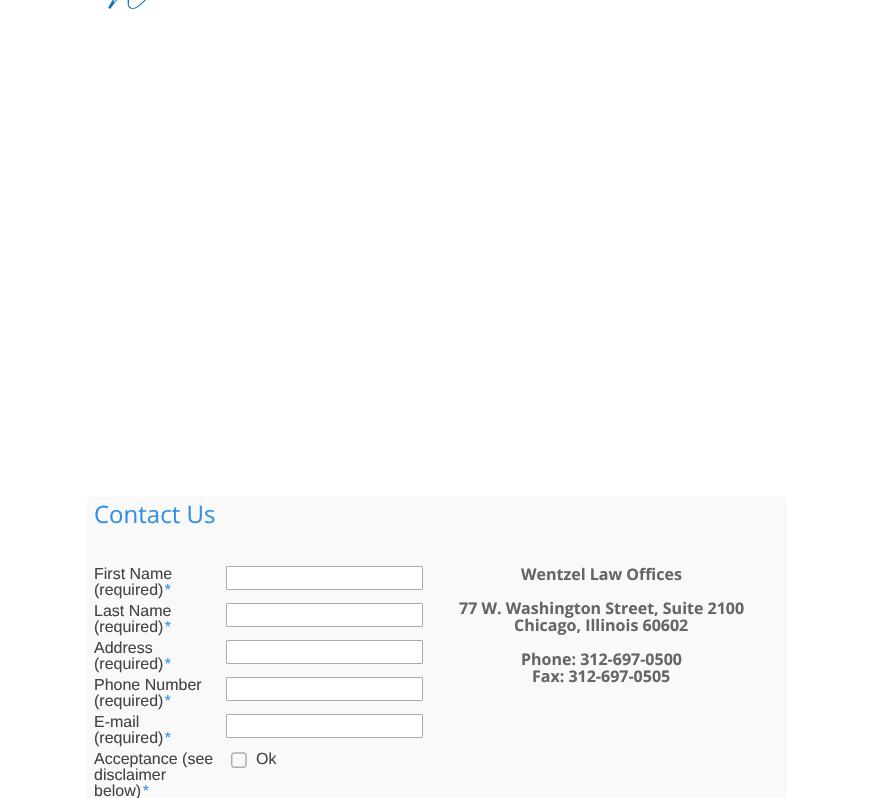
void draw(SkCanvas* canvas) {
    SkPaint paint;
    paint.setAntiAlias(true);
    canvas->clear(0xFFFFFFFF);
    canvas->drawImageRect(SkImages::DeferredFromEncodedData(SkData::MakeFromFileName("img1.png")), SkRect::MakeXYWH(108, 0, 38, 9), SkSamplingOptions());
    paint.setColor(0xFFF9F9F9);
    canvas->drawRect(SkRect::MakeXYWH(87, 497, 700, 301), paint);
    SkFont font1(fontMgr->matchFamilyStyle("Open Sans", SkFontStyle::Normal()), 24);
    font1.setSubpixel(true);
    paint.setColor(0xFF328FE6);
    canvas->drawString("Contact Us", 94, 523, font1, paint);
    SkFont font2(fontMgr->matchFamilyStyle("Liberation Sans", SkFontStyle::Normal()), 16);
    font2.setSubpixel(true);
    paint.setColor(0xFF444444);
    canvas->drawString("First Name", 94, 579, font2, paint);
    canvas->drawString("(required)", 94, 595, font2, paint);
    SkFont font3(fontMgr->matchFamilyStyle("Liberation Sans", SkFontStyle::Italic()), 16);
    font3.setSubpixel(true);
    paint.setColor(0xFF328FE6);
    canvas->drawString("*", 164, 595, font3, paint);
    paint.setColor(0xFFFFFFFF);
    canvas->drawRoundRect(SkRect::MakeXYWH(226.5f, 566.5f, 196, 23), 0.5f, 0.5f, paint);
    paint.setStyle(SkPaint::kStroke_Style);
    paint.setStrokeWidth(1);
    paint.setColor(0xFFABABAB);
    canvas->drawRoundRect(SkRect::MakeXYWH(226.5f, 566.5f, 196, 23), 0.5f, 0.5f, paint);
    paint.setStyle(SkPaint::kFill_Style);
    paint.setColor(0xFF444444);
    canvas->drawString("Last Name", 94, 616, font2, paint);
    canvas->drawString("(required)", 94, 632, font2, paint);
    paint.setColor(0xFF328FE6);
    canvas->drawString("*", 164, 632, font3, paint);
    paint.setColor(0xFFFFFFFF);
    canvas->drawRoundRect(SkRect::MakeXYWH(226.5f, 603.5f, 196, 23), 0.5f, 0.5f, paint);
    paint.setStyle(SkPaint::kStroke_Style);
    paint.setColor(0xFFABABAB);
    canvas->drawRoundRect(SkRect::MakeXYWH(226.5f, 603.5f, 196, 23), 0.5f, 0.5f, paint);
    paint.setStyle(SkPaint::kFill_Style);
    paint.setColor(0xFF444444);
    canvas->drawString("Address", 94, 653, font2, paint);
    canvas->drawString("(required)", 94, 669, font2, paint);
    paint.setColor(0xFF328FE6);
    canvas->drawString("*", 164, 669, font3, paint);
    paint.setColor(0xFFFFFFFF);
    canvas->drawRoundRect(SkRect::MakeXYWH(226.5f, 640.5f, 196, 23), 0.5f, 0.5f, paint);
    paint.setStyle(SkPaint::kStroke_Style);
    paint.setColor(0xFFABABAB);
    canvas->drawRoundRect(SkRect::MakeXYWH(226.5f, 640.5f, 196, 23), 0.5f, 0.5f, paint);
    paint.setStyle(SkPaint::kFill_Style);
    paint.setColor(0xFF444444);
    canvas->drawString("Phone Number", 94, 690, font2, paint);
    canvas->drawString("(required)", 94, 706, font2, paint);
    paint.setColor(0xFF328FE6);
    canvas->drawString("*", 164, 706, font3, paint);
    paint.setColor(0xFFFFFFFF);
    canvas->drawRoundRect(SkRect::MakeXYWH(226.5f, 677.5f, 196, 23), 0.5f, 0.5f, paint);
    paint.setStyle(SkPaint::kStroke_Style);
    paint.setColor(0xFFABABAB);
    canvas->drawRoundRect(SkRect::MakeXYWH(226.5f, 677.5f, 196, 23), 0.5f, 0.5f, paint);
    paint.setStyle(SkPaint::kFill_Style);
    paint.setColor(0xFF444444);
    canvas->drawString("E-mail", 94, 727, font2, paint);
    canvas->drawString("(required)", 94, 743, font2, paint);
    paint.setColor(0xFF328FE6);
    canvas->drawString("*", 164, 743, font3, paint);
    paint.setColor(0xFFFFFFFF);
    canvas->drawRoundRect(SkRect::MakeXYWH(226.5f, 714.5f, 196, 23), 0.5f, 0.5f, paint);
    paint.setStyle(SkPaint::kStroke_Style);
    paint.setColor(0xFFABABAB);
    canvas->drawRoundRect(SkRect::MakeXYWH(226.5f, 714.5f, 196, 23), 0.5f, 0.5f, paint);
    paint.setStyle(SkPaint::kFill_Style);
    paint.setColor(0xFF444444);
    canvas->drawString("Acceptance (see", 94, 764, font2, paint);
    canvas->drawString("disclaimer", 94, 780, font2, paint);
    canvas->drawString("below)", 94, 796, font2, paint);
    paint.setColor(0xFF328FE6);
    canvas->drawString("*", 142, 796, font3, paint);
    canvas->drawImageRect(SkImages::DeferredFromEncodedData(SkData::MakeFromFileName("img2.png")), SkRect::MakeXYWH(231, 752, 16, 16), SkSamplingOptions());
    paint.setColor(0xFF444444);
    canvas->drawString("Ok", 256, 764, font2, paint);
    SkFont font4(fontMgr->matchFamilyStyle("Open Sans", SkFontStyle::Bold()), 16);
    font4.setSubpixel(true);
    paint.setColor(0xFF666666);
    canvas->drawString("Wentzel Law Offices", 521, 580, font4, paint);
    canvas->drawString("77 W. Washington Street, Suite 2100", 459, 614, font4, paint);
    canvas->drawString("Chicago, Illinois 60602", 514, 631, font4, paint);
    canvas->drawString("Phone: 312-697-0500", 521, 665, font4, paint);
    canvas->drawString("Fax: 312-697-0505", 532, 682, font4, paint);
}
